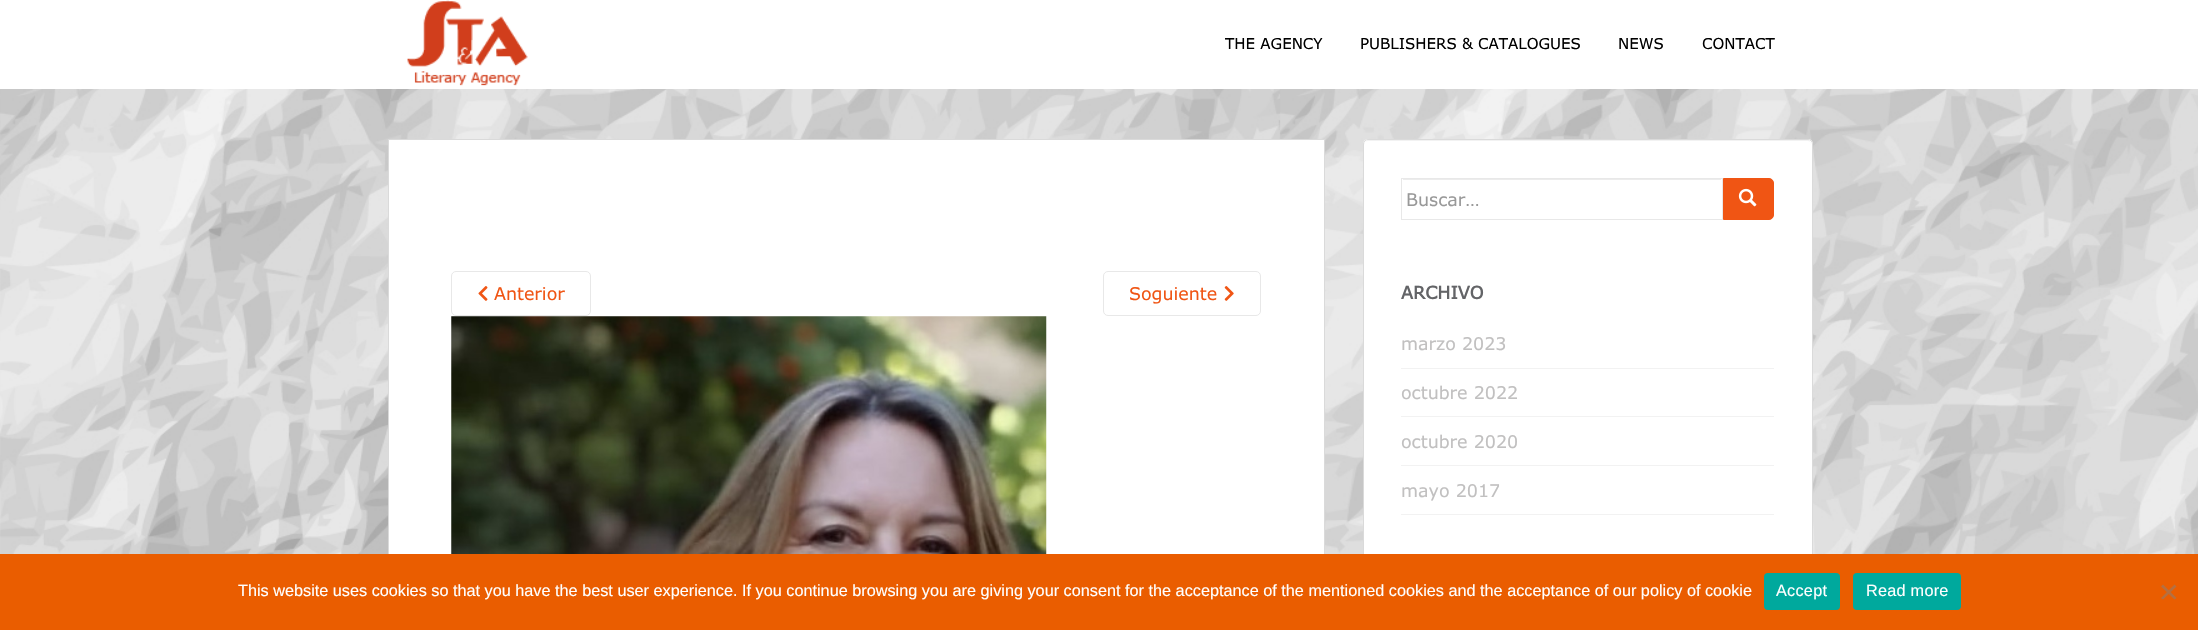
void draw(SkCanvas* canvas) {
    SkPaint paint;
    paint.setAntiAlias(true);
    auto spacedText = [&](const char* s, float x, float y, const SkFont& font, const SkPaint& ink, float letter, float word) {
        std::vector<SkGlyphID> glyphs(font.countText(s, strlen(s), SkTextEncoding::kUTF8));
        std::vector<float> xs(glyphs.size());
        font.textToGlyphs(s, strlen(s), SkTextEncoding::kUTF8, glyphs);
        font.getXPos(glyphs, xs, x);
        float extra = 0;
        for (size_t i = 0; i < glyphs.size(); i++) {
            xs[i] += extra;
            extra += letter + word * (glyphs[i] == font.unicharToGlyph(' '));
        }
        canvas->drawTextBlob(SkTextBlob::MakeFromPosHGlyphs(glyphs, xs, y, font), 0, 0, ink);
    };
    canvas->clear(0xFFFFFFFF);
    canvas->drawImageRect(SkImages::DeferredFromEncodedData(SkData::MakeFromFileName("img1.png")), SkRect::MakeXYWH(0, 89, 2198, 465), SkSamplingOptions());
    canvas->drawImageRect(SkImages::DeferredFromEncodedData(SkData::MakeFromFileName("img2.png")), SkRect::MakeXYWH(407, 0, 121, 86), SkSamplingOptions());
    SkFont font1(fontMgr->matchFamilyStyle("Verdana", SkFontStyle::Normal()), 15);
    font1.setSubpixel(true);
    paint.setColor(0xFF000000);
    canvas->drawString("THE AGENCY", 1225, 49, font1, paint);
    canvas->drawString("PUBLISHERS & CATALOGUES", 1360, 49, font1, paint);
    canvas->drawString("NEWS", 1618, 49, font1, paint);
    canvas->drawString("CONTACT", 1702, 49, font1, paint);
    paint.setColor(0xFFFFFFFF);
    canvas->drawRect(SkRect::MakeXYWH(389, 140, 935, 414), paint);
    paint.setStyle(SkPaint::kStroke_Style);
    paint.setStrokeWidth(1);
    paint.setColor(0xFFDADADA);
    canvas->drawRect(SkRect::MakeXYWH(388.5f, 139.5f, 936, 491), paint);
    paint.setColor(0xFFE8E8E8);
    canvas->drawRoundRect(SkRect::MakeXYWH(451.5f, 271.5f, 139, 44), 4.5f, 4.5f, paint);
    canvas->drawImageRect(SkImages::DeferredFromEncodedData(SkData::MakeFromFileName("img3.png")), SkRect::MakeXYWH(478, 286, 10, 15), SkSamplingOptions());
    SkFont font2(fontMgr->matchFamilyStyle("Verdana", SkFontStyle::Normal()), 17.5f);
    font2.setSubpixel(true);
    paint.setStyle(SkPaint::kFill_Style);
    paint.setColor(0xFFF05514);
    canvas->drawString("Anterior", 494, 300, font2, paint);
    paint.setStyle(SkPaint::kStroke_Style);
    paint.setColor(0xFFE8E8E8);
    canvas->drawRoundRect(SkRect::MakeXYWH(1103.5f, 271.5f, 157, 44), 4.5f, 4.5f, paint);
    paint.setStyle(SkPaint::kFill_Style);
    paint.setColor(0xFFF05514);
    canvas->drawString("Soguiente", 1129, 300, font2, paint);
    canvas->drawImageRect(SkImages::DeferredFromEncodedData(SkData::MakeFromFileName("img4.png")), SkRect::MakeXYWH(1224, 286, 10, 15), SkSamplingOptions());
    canvas->drawImageRect(SkImages::DeferredFromEncodedData(SkData::MakeFromFileName("img5.png")), SkRect::MakeXYWH(451, 316, 596, 238), SkSamplingOptions());
    paint.setColor(0xFFFFFFFF);
    canvas->drawRoundRect(SkRect::MakeXYWH(1363, 139, 450, 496), 5, 5, paint);
    paint.setColor(0xFFF2F2F2);
    canvas->drawPath(SkPathBuilder().moveTo(1368, 141).lineTo(1808, 141).cubicTo(1810, 141, 1811, 143, 1811, 145).cubicTo(1811, 142, 1810, 140, 1807, 140).lineTo(1368, 140).lineTo(1366, 141).lineTo(1365, 142).lineTo(1364, 145).cubicTo(1364, 143, 1365, 141, 1368, 141).close().detach(), paint);
    paint.setStyle(SkPaint::kStroke_Style);
    paint.setColor(0xFFDADADA);
    canvas->drawRoundRect(SkRect::MakeXYWH(1363.5f, 139.5f, 449, 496), 4.5f, 4.5f, paint);
    paint.setStyle(SkPaint::kFill_Style);
    paint.setColor(0xFFECECEC);
    canvas->drawRect(SkRect::MakeXYWH(1403, 179, 318, 1), paint);
    paint.setStyle(SkPaint::kStroke_Style);
    paint.setColor(0xFFE8E8E8);
    canvas->drawRect(SkRect::MakeXYWH(1401.5f, 178.5f, 321, 41), paint);
    paint.setStyle(SkPaint::kFill_Style);
    paint.setColor(0xFF999999);
    canvas->drawString("Buscar…", 1406, 206, font2, paint);
    paint.setColor(0xFFF05514);
    canvas->drawPath(SkPathBuilder().moveTo(1723.5f, 178.5f).lineTo(1769, 178.5f).cubicTo(1771.5f, 178.5f, 1773.5f, 180.5f, 1773.5f, 183).lineTo(1773.5f, 215).cubicTo(1773.5f, 217.5f, 1771.5f, 219.5f, 1769, 219.5f).lineTo(1723.5f, 219.5f).close().detach(), paint);
    paint.setStyle(SkPaint::kStroke_Style);
    canvas->drawPath(SkPathBuilder().moveTo(1723.5f, 178.5f).lineTo(1769, 178.5f).cubicTo(1771.5f, 178.5f, 1773.5f, 180.5f, 1773.5f, 183).lineTo(1773.5f, 215).cubicTo(1773.5f, 217.5f, 1771.5f, 219.5f, 1769, 219.5f).lineTo(1723.5f, 219.5f).close().detach(), paint);
    canvas->drawImageRect(SkImages::DeferredFromEncodedData(SkData::MakeFromFileName("img6.png")), SkRect::MakeXYWH(1738, 188, 19, 19), SkSamplingOptions());
    SkFont font3(fontMgr->matchFamilyStyle("Verdana", SkFontStyle::Bold()), 17.5f);
    font3.setSubpixel(true);
    paint.setStyle(SkPaint::kFill_Style);
    paint.setColor(0xFF636467);
    canvas->drawString("ARCHIVO", 1401, 299, font3, paint);
    paint.setColor(0xFFF2F2F2);
    canvas->drawRect(SkRect::MakeXYWH(1401, 368, 373, 1), paint);
    paint.setColor(0xFFC1C0C0);
    canvas->drawString("marzo 2023", 1401, 350, font2, paint);
    paint.setColor(0xFFF2F2F2);
    canvas->drawRect(SkRect::MakeXYWH(1401, 416, 373, 1), paint);
    paint.setColor(0xFFC1C0C0);
    canvas->drawString("octubre 2022", 1401, 399, font2, paint);
    paint.setColor(0xFFF2F2F2);
    canvas->drawRect(SkRect::MakeXYWH(1401, 465, 373, 1), paint);
    paint.setColor(0xFFC1C0C0);
    canvas->drawString("octubre 2020", 1401, 448, font2, paint);
    paint.setColor(0xFFF2F2F2);
    canvas->drawRect(SkRect::MakeXYWH(1401, 514, 373, 1), paint);
    paint.setColor(0xFFC1C0C0);
    canvas->drawString("mayo 2017", 1401, 497, font2, paint);
    paint.setColor(0xFFEA5D00);
    canvas->drawRect(SkRect::MakeXYWH(0, 554, 2198, 76), paint);
    SkFont font4(fontMgr->matchFamilyStyle("Liberation Sans", SkFontStyle::Normal()), 16.25f);
    font4.setSubpixel(true);
    paint.setColor(0xFFFFFFFF);
    canvas->drawString("This website uses cookies so that you have the best user experience. If you continue browsing you are giving your consent for the acceptance of the mentioned cookies and the acceptance of our policy of cookie", 238, 596, font4, paint);
    paint.setColor(0xFF00A99D);
    canvas->drawRoundRect(SkRect::MakeXYWH(1764, 573, 76, 37), 4, 4, paint);
    paint.setColor(0xFFFFFFFF);
    spacedText("Accept", 1776, 596, font4, paint, 0.25f, 0);
    paint.setColor(0xFF00A99D);
    canvas->drawRoundRect(SkRect::MakeXYWH(1853, 573, 108, 37), 4, 4, paint);
    paint.setColor(0xFFFFFFFF);
    spacedText("Read more", 1866, 596, font4, paint, 0.25f, 0);
    paint.setColor(0xFFB56F40);
    canvas->drawPath(SkPathBuilder().moveTo(2174.5f, 584.5f).lineTo(2176.5f, 586.5f).lineTo(2163, 599.5f).lineTo(2161, 598).close().detach(), paint);
    canvas->drawPath(SkPathBuilder().moveTo(2161, 586.5f).lineTo(2163, 584.5f).lineTo(2176.5f, 598).lineTo(2174.5f, 599.5f).close().detach(), paint);
}
